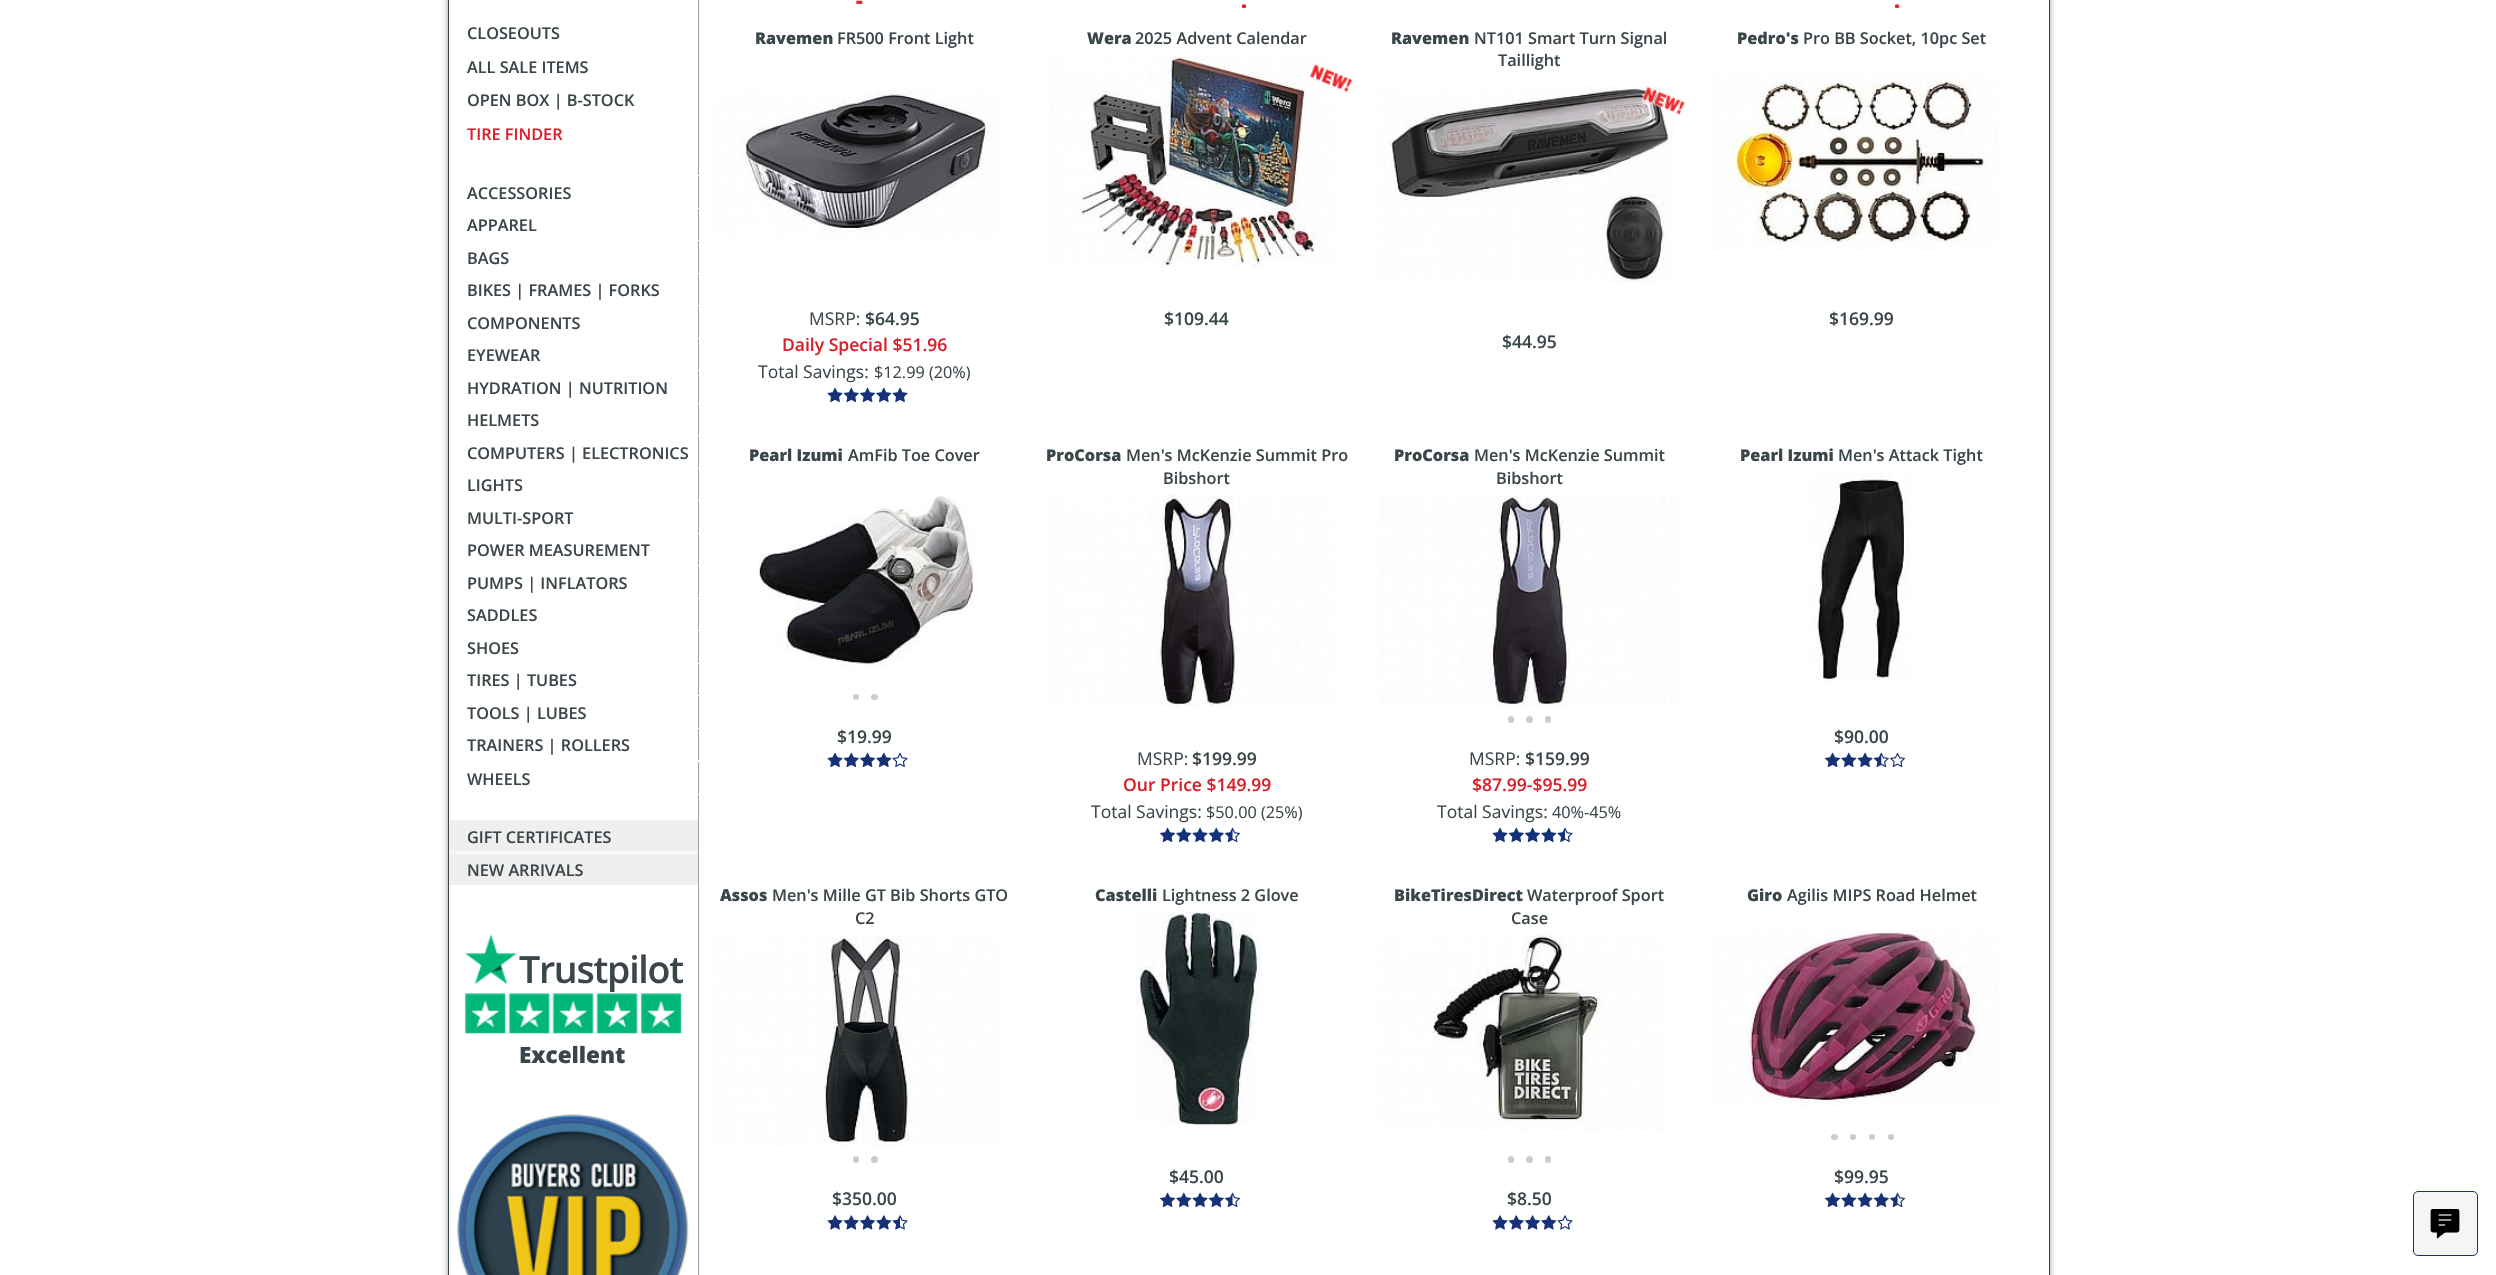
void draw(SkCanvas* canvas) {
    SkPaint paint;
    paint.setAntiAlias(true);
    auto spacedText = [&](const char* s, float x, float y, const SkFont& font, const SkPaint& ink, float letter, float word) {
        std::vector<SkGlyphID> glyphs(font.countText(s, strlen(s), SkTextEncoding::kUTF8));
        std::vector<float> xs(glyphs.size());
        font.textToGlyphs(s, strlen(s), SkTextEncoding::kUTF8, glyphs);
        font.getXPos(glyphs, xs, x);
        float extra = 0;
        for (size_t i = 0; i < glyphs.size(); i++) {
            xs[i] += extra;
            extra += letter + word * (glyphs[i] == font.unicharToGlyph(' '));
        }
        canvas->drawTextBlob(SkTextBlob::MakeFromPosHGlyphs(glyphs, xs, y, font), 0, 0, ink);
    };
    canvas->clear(0xFFFFFFFF);
    canvas->save();
    canvas->clipPath(SkPathBuilder(SkPathFillType::kEvenOdd).moveTo(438, 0).lineTo(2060, 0).lineTo(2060, 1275).lineTo(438, 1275).close().moveTo(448, -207).lineTo(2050, -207).lineTo(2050, 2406).lineTo(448, 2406).close().detach(), true);
    paint.setColor(0x66000000);
    paint.setMaskFilter(SkMaskFilter::MakeBlur(kNormal_SkBlurStyle, 3));
    canvas->drawRect(SkRect::MakeXYWH(448, -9, 1602, 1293), paint);
    paint.setMaskFilter(nullptr);
    canvas->restore();
    paint.setColor(0xFF3B464A);
    canvas->drawRect(SkRect::MakeXYWH(2049, 0, 1, 1275), paint);
    canvas->drawRect(SkRect::MakeXYWH(448, 0, 1, 1275), paint);
    paint.setColor(0xFFA0A0A0);
    canvas->drawRect(SkRect::MakeXYWH(698, 0, 1, 1275), paint);
    SkFont font1(fontMgr->matchFamilyStyle("Open Sans", SkFontStyle(600, SkFontStyle::kNormal_Width, SkFontStyle::kUpright_Slant)), 16.25f);
    font1.setSubpixel(true);
    paint.setColor(0xFF3B464A);
    canvas->drawString("CLOSEOUTS", 467, 39, font1, paint);
    canvas->drawString("ALL SALE ITEMS", 467, 73, font1, paint);
    canvas->drawString("OPEN BOX | B-STOCK", 467, 106, font1, paint);
    paint.setColor(0xFFD8202A);
    canvas->drawString("TIRE FINDER", 467, 140, font1, paint);
    paint.setColor(0xFFFFFFFF);
    canvas->drawRect(SkRect::MakeXYWH(698, 175, 1, 1), paint);
    canvas->drawRect(SkRect::MakeXYWH(698, 208, 1, 1), paint);
    paint.setColor(0xFF3B464A);
    canvas->drawString("ACCESSORIES", 467, 199, font1, paint);
    paint.setColor(0xFFFFFFFF);
    canvas->drawRect(SkRect::MakeXYWH(698, 240, 1, 1), paint);
    paint.setColor(0xFF3B464A);
    canvas->drawString("APPAREL", 467, 231, font1, paint);
    paint.setColor(0xFFFFFFFF);
    canvas->drawRect(SkRect::MakeXYWH(698, 273, 1, 1), paint);
    paint.setColor(0xFF3B464A);
    canvas->drawString("BAGS", 467, 264, font1, paint);
    paint.setColor(0xFFFFFFFF);
    canvas->drawRect(SkRect::MakeXYWH(698, 305, 1, 1), paint);
    paint.setColor(0xFF3B464A);
    canvas->drawString("BIKES | FRAMES | FORKS", 467, 296, font1, paint);
    paint.setColor(0xFFFFFFFF);
    canvas->drawRect(SkRect::MakeXYWH(698, 338, 1, 1), paint);
    paint.setColor(0xFF3B464A);
    canvas->drawString("COMPONENTS", 467, 329, font1, paint);
    paint.setColor(0xFFFFFFFF);
    canvas->drawRect(SkRect::MakeXYWH(698, 370, 1, 1), paint);
    paint.setColor(0xFF3B464A);
    canvas->drawString("EYEWEAR", 467, 361, font1, paint);
    paint.setColor(0xFFFFFFFF);
    canvas->drawRect(SkRect::MakeXYWH(698, 403, 1, 1), paint);
    paint.setColor(0xFF3B464A);
    canvas->drawString("HYDRATION | NUTRITION", 467, 394, font1, paint);
    paint.setColor(0xFFFFFFFF);
    canvas->drawRect(SkRect::MakeXYWH(698, 435, 1, 1), paint);
    paint.setColor(0xFF3B464A);
    canvas->drawString("HELMETS", 467, 426, font1, paint);
    paint.setColor(0xFFFFFFFF);
    canvas->drawRect(SkRect::MakeXYWH(698, 468, 1, 1), paint);
    paint.setColor(0xFF3B464A);
    canvas->drawString("COMPUTERS | ELECTRONICS", 467, 459, font1, paint);
    paint.setColor(0xFFFFFFFF);
    canvas->drawRect(SkRect::MakeXYWH(698, 500, 1, 1), paint);
    paint.setColor(0xFF3B464A);
    canvas->drawString("LIGHTS", 467, 491, font1, paint);
    paint.setColor(0xFFFFFFFF);
    canvas->drawRect(SkRect::MakeXYWH(698, 533, 1, 1), paint);
    paint.setColor(0xFF3B464A);
    canvas->drawString("MULTI-SPORT", 467, 524, font1, paint);
    paint.setColor(0xFFFFFFFF);
    canvas->drawRect(SkRect::MakeXYWH(698, 565, 1, 1), paint);
    paint.setColor(0xFF3B464A);
    canvas->drawString("POWER MEASUREMENT", 467, 556, font1, paint);
    paint.setColor(0xFFFFFFFF);
    canvas->drawRect(SkRect::MakeXYWH(698, 598, 1, 1), paint);
    paint.setColor(0xFF3B464A);
    canvas->drawString("PUMPS | INFLATORS", 467, 589, font1, paint);
    paint.setColor(0xFFFFFFFF);
    canvas->drawRect(SkRect::MakeXYWH(698, 630, 1, 1), paint);
    paint.setColor(0xFF3B464A);
    canvas->drawString("SADDLES", 467, 621, font1, paint);
    paint.setColor(0xFFFFFFFF);
    canvas->drawRect(SkRect::MakeXYWH(698, 663, 1, 1), paint);
    paint.setColor(0xFF3B464A);
    canvas->drawString("SHOES", 467, 654, font1, paint);
    paint.setColor(0xFFFFFFFF);
    canvas->drawRect(SkRect::MakeXYWH(698, 695, 1, 1), paint);
    paint.setColor(0xFF3B464A);
    canvas->drawString("TIRES | TUBES", 467, 686, font1, paint);
    paint.setColor(0xFFFFFFFF);
    canvas->drawRect(SkRect::MakeXYWH(698, 728, 1, 1), paint);
    paint.setColor(0xFF3B464A);
    canvas->drawString("TOOLS | LUBES", 467, 719, font1, paint);
    paint.setColor(0xFFFFFFFF);
    canvas->drawRect(SkRect::MakeXYWH(698, 760, 1, 2), paint);
    paint.setColor(0xFF3B464A);
    canvas->drawString("TRAINERS | ROLLERS", 467, 751, font1, paint);
    paint.setColor(0xFFFFFFFF);
    canvas->drawRect(SkRect::MakeXYWH(698, 794, 1, 1), paint);
    paint.setColor(0xFF3B464A);
    canvas->drawString("WHEELS", 467, 785, font1, paint);
    paint.setColor(0xFFEFEFEF);
    canvas->drawRect(SkRect::MakeXYWH(449, 820, 249, 33), paint);
    paint.setColor(0xFFFFFFFF);
    canvas->drawRect(SkRect::MakeXYWH(449, 851, 249, 1), paint);
    paint.setColor(0xFF3B464A);
    canvas->drawString("GIFT CERTIFICATES", 467, 843, font1, paint);
    paint.setColor(0xFFEFEFEF);
    canvas->drawRect(SkRect::MakeXYWH(449, 854, 249, 31), paint);
    paint.setColor(0xFF3B464A);
    canvas->drawString("NEW ARRIVALS", 467, 876, font1, paint);
    canvas->drawImageRect(SkImages::DeferredFromEncodedData(SkData::MakeFromFileName("img1.png")), SkRect::MakeXYWH(464, 934, 218, 100), SkSamplingOptions());
    SkFont font2(fontMgr->matchFamilyStyle("Open Sans", SkFontStyle(600, SkFontStyle::kNormal_Width, SkFontStyle::kUpright_Slant)), 37.5f);
    font2.setSubpixel(true);
    spacedText("Trustpilot", 519, 983, font2, paint, -1.25f, 0);
    SkFont font3(fontMgr->matchFamilyStyle("Open Sans", SkFontStyle(800, SkFontStyle::kNormal_Width, SkFontStyle::kUpright_Slant)), 22.5f);
    font3.setSubpixel(true);
    canvas->drawString("Excellent", 519, 1063, font3, paint);
    canvas->drawImageRect(SkImages::DeferredFromEncodedData(SkData::MakeFromFileName("img2.png")), SkRect::MakeXYWH(457, 1114, 232, 161), SkSamplingOptions());
    SkFont font4(fontMgr->matchFamilyStyle("Open Sans", SkFontStyle(800, SkFontStyle::kNormal_Width, SkFontStyle::kUpright_Slant)), 21);
    font4.setSubpixel(true);
    paint.setColor(0xFFE92427);
    canvas->drawString("-", 856, 8, font4, paint);
    canvas->drawString(".", 1241, 8, font4, paint);
    canvas->drawString(".", 1894, 8, font4, paint);
    SkFont font5(fontMgr->matchFamilyStyle("Open Sans", SkFontStyle(800, SkFontStyle::kNormal_Width, SkFontStyle::kUpright_Slant)), 16.25f);
    font5.setSubpixel(true);
    paint.setColor(0xFF3B464A);
    canvas->drawString("Ravemen", 755, 44, font5, paint);
    canvas->drawString("FR500 Front Light", 837, 44, font1, paint);
    canvas->drawImageRect(SkImages::DeferredFromEncodedData(SkData::MakeFromFileName("img3.png")), SkRect::MakeXYWH(713, 90, 287, 147), SkSamplingOptions());
    SkFont font6(fontMgr->matchFamilyStyle("Open Sans", SkFontStyle::Normal()), 17.5f);
    font6.setSubpixel(true);
    canvas->drawString("MSRP:", 809, 325, font6, paint);
    SkFont font7(fontMgr->matchFamilyStyle("Open Sans", SkFontStyle(600, SkFontStyle::kNormal_Width, SkFontStyle::kUpright_Slant)), 17.5f);
    font7.setSubpixel(true);
    canvas->drawString("$64.95", 865, 325, font7, paint);
    paint.setColor(0xFFD8202A);
    canvas->drawString("Daily Special $51.96", 782, 351, font7, paint);
    paint.setColor(0xFF3B464A);
    canvas->drawString("Total Savings:", 758, 378, font6, paint);
    SkFont font8(fontMgr->matchFamilyStyle("Open Sans", SkFontStyle::Normal()), 16.25f);
    font8.setSubpixel(true);
    canvas->drawString("$12.99 (20%)", 874, 378, font8, paint);
    canvas->drawImageRect(SkImages::DeferredFromEncodedData(SkData::MakeFromFileName("img4.png")), SkRect::MakeXYWH(827, 387, 16, 16), SkSamplingOptions());
    canvas->drawImageRect(SkImages::DeferredFromEncodedData(SkData::MakeFromFileName("img5.png")), SkRect::MakeXYWH(843, 387, 16, 16), SkSamplingOptions());
    canvas->drawImageRect(SkImages::DeferredFromEncodedData(SkData::MakeFromFileName("img6.png")), SkRect::MakeXYWH(860, 387, 15, 16), SkSamplingOptions());
    canvas->drawImageRect(SkImages::DeferredFromEncodedData(SkData::MakeFromFileName("img7.png")), SkRect::MakeXYWH(876, 387, 16, 16), SkSamplingOptions());
    canvas->drawImageRect(SkImages::DeferredFromEncodedData(SkData::MakeFromFileName("img4.png")), SkRect::MakeXYWH(892, 387, 16, 16), SkSamplingOptions());
    canvas->drawString("Wera", 1087, 44, font5, paint);
    canvas->drawString("2025 Advent Calendar", 1135, 44, font1, paint);
    canvas->drawImageRect(SkImages::DeferredFromEncodedData(SkData::MakeFromFileName("img8.png")), SkRect::MakeXYWH(1045, 54, 288, 213), SkSamplingOptions());
    canvas->drawImageRect(SkImages::DeferredFromEncodedData(SkData::MakeFromFileName("img9.png")), SkRect::MakeXYWH(1309, 64, 44, 29), SkSamplingOptions());
    canvas->drawString("$109.44", 1164, 325, font7, paint);
    canvas->drawString("Ravemen", 1391, 44, font5, paint);
    canvas->drawString("NT101 Smart Turn Signal", 1474, 44, font1, paint);
    canvas->drawString("Taillight", 1498, 66, font1, paint);
    canvas->drawImageRect(SkImages::DeferredFromEncodedData(SkData::MakeFromFileName("img10.png")), SkRect::MakeXYWH(1378, 86, 296, 197), SkSamplingOptions());
    canvas->drawImageRect(SkImages::DeferredFromEncodedData(SkData::MakeFromFileName("img11.png")), SkRect::MakeXYWH(1641, 86, 45, 29), SkSamplingOptions());
    canvas->drawString("$44.95", 1502, 348, font7, paint);
    canvas->drawString("Pedro's", 1737, 44, font5, paint);
    canvas->drawString("Pro BB Socket, 10pc Set", 1803, 44, font1, paint);
    canvas->drawImageRect(SkImages::DeferredFromEncodedData(SkData::MakeFromFileName("img12.png")), SkRect::MakeXYWH(1710, 73, 288, 177), SkSamplingOptions());
    canvas->drawString("$169.99", 1829, 325, font7, paint);
    canvas->drawString("Pearl Izumi", 749, 461, font5, paint);
    canvas->drawString("AmFib Toe Cover", 848, 461, font1, paint);
    canvas->drawImageRect(SkImages::DeferredFromEncodedData(SkData::MakeFromFileName("img13.png")), SkRect::MakeXYWH(759, 495, 215, 174), SkSamplingOptions());
    paint.setColor(0xFFCCCCCC);
    canvas->drawCircle(856, 697, 3, paint);
    canvas->drawRoundRect(SkRect::MakeXYWH(871, 694, 7, 6), 3, 3, paint);
    paint.setColor(0xFF3B464A);
    canvas->drawString("$19.99", 837, 743, font7, paint);
    canvas->drawImageRect(SkImages::DeferredFromEncodedData(SkData::MakeFromFileName("img4.png")), SkRect::MakeXYWH(827, 752, 16, 16), SkSamplingOptions());
    canvas->drawImageRect(SkImages::DeferredFromEncodedData(SkData::MakeFromFileName("img5.png")), SkRect::MakeXYWH(843, 752, 16, 16), SkSamplingOptions());
    canvas->drawImageRect(SkImages::DeferredFromEncodedData(SkData::MakeFromFileName("img6.png")), SkRect::MakeXYWH(860, 752, 15, 16), SkSamplingOptions());
    canvas->drawImageRect(SkImages::DeferredFromEncodedData(SkData::MakeFromFileName("img7.png")), SkRect::MakeXYWH(876, 752, 16, 16), SkSamplingOptions());
    canvas->drawImageRect(SkImages::DeferredFromEncodedData(SkData::MakeFromFileName("img14.png")), SkRect::MakeXYWH(892, 752, 16, 16), SkSamplingOptions());
    canvas->drawString("ProCorsa", 1046, 461, font5, paint);
    canvas->drawString("Men's McKenzie Summit Pro", 1126, 461, font1, paint);
    canvas->drawString("Bibshort", 1163, 484, font1, paint);
    canvas->drawImageRect(SkImages::DeferredFromEncodedData(SkData::MakeFromFileName("img15.png")), SkRect::MakeXYWH(1045, 494, 288, 213), SkSamplingOptions());
    canvas->drawString("MSRP:", 1137, 765, font6, paint);
    canvas->drawString("$199.99", 1192, 765, font7, paint);
    paint.setColor(0xFFD8202A);
    canvas->drawString("Our Price $149.99", 1123, 791, font7, paint);
    paint.setColor(0xFF3B464A);
    canvas->drawString("Total Savings:", 1091, 818, font6, paint);
    canvas->drawString("$50.00 (25%)", 1206, 818, font8, paint);
    canvas->drawImageRect(SkImages::DeferredFromEncodedData(SkData::MakeFromFileName("img6.png")), SkRect::MakeXYWH(1160, 827, 15, 16), SkSamplingOptions());
    canvas->drawImageRect(SkImages::DeferredFromEncodedData(SkData::MakeFromFileName("img7.png")), SkRect::MakeXYWH(1176, 827, 16, 16), SkSamplingOptions());
    canvas->drawImageRect(SkImages::DeferredFromEncodedData(SkData::MakeFromFileName("img4.png")), SkRect::MakeXYWH(1192, 827, 16, 16), SkSamplingOptions());
    canvas->drawImageRect(SkImages::DeferredFromEncodedData(SkData::MakeFromFileName("img5.png")), SkRect::MakeXYWH(1208, 827, 16, 16), SkSamplingOptions());
    canvas->drawImageRect(SkImages::DeferredFromEncodedData(SkData::MakeFromFileName("img16.png")), SkRect::MakeXYWH(1225, 827, 16, 16), SkSamplingOptions());
    canvas->drawString("ProCorsa", 1394, 461, font5, paint);
    canvas->drawString("Men's McKenzie Summit", 1474, 461, font1, paint);
    canvas->drawString("Bibshort", 1496, 484, font1, paint);
    canvas->drawImageRect(SkImages::DeferredFromEncodedData(SkData::MakeFromFileName("img17.png")), SkRect::MakeXYWH(1379, 495, 304, 212), SkSamplingOptions());
    paint.setColor(0xFFCCCCCC);
    canvas->drawRoundRect(SkRect::MakeXYWH(1508, 716, 6, 7), 3, 3, paint);
    canvas->drawCircle(1529.5f, 719.5f, 3.5f, paint);
    canvas->drawRoundRect(SkRect::MakeXYWH(1545, 716, 6, 7), 3, 3, paint);
    paint.setColor(0xFF3B464A);
    canvas->drawString("MSRP:", 1469, 765, font6, paint);
    canvas->drawString("$159.99", 1525, 765, font7, paint);
    paint.setColor(0xFFD8202A);
    canvas->drawString("$87.99-$95.99", 1472, 791, font7, paint);
    paint.setColor(0xFF3B464A);
    canvas->drawString("Total Savings:", 1437, 818, font6, paint);
    canvas->drawString("40%-45%", 1552, 818, font8, paint);
    canvas->drawImageRect(SkImages::DeferredFromEncodedData(SkData::MakeFromFileName("img4.png")), SkRect::MakeXYWH(1492, 827, 16, 16), SkSamplingOptions());
    canvas->drawImageRect(SkImages::DeferredFromEncodedData(SkData::MakeFromFileName("img5.png")), SkRect::MakeXYWH(1508, 827, 16, 16), SkSamplingOptions());
    canvas->drawImageRect(SkImages::DeferredFromEncodedData(SkData::MakeFromFileName("img6.png")), SkRect::MakeXYWH(1525, 827, 15, 16), SkSamplingOptions());
    canvas->drawImageRect(SkImages::DeferredFromEncodedData(SkData::MakeFromFileName("img7.png")), SkRect::MakeXYWH(1541, 827, 16, 16), SkSamplingOptions());
    canvas->drawImageRect(SkImages::DeferredFromEncodedData(SkData::MakeFromFileName("img18.png")), SkRect::MakeXYWH(1557, 827, 16, 16), SkSamplingOptions());
    canvas->drawString("Pearl Izumi", 1740, 461, font5, paint);
    canvas->drawString("Men's Attack Tight", 1838, 461, font1, paint);
    canvas->drawImageRect(SkImages::DeferredFromEncodedData(SkData::MakeFromFileName("img19.png")), SkRect::MakeXYWH(1811, 473, 98, 210), SkSamplingOptions());
    canvas->drawString("$90.00", 1834, 743, font7, paint);
    canvas->drawImageRect(SkImages::DeferredFromEncodedData(SkData::MakeFromFileName("img6.png")), SkRect::MakeXYWH(1825, 752, 15, 16), SkSamplingOptions());
    canvas->drawImageRect(SkImages::DeferredFromEncodedData(SkData::MakeFromFileName("img7.png")), SkRect::MakeXYWH(1841, 752, 16, 16), SkSamplingOptions());
    canvas->drawImageRect(SkImages::DeferredFromEncodedData(SkData::MakeFromFileName("img4.png")), SkRect::MakeXYWH(1857, 752, 16, 16), SkSamplingOptions());
    canvas->drawImageRect(SkImages::DeferredFromEncodedData(SkData::MakeFromFileName("img20.png")), SkRect::MakeXYWH(1873, 752, 16, 16), SkSamplingOptions());
    canvas->drawImageRect(SkImages::DeferredFromEncodedData(SkData::MakeFromFileName("img21.png")), SkRect::MakeXYWH(1890, 752, 15, 16), SkSamplingOptions());
    canvas->drawString("Assos", 720, 901, font5, paint);
    canvas->drawString("Men's Mille GT Bib Shorts GTO", 772, 901, font1, paint);
    canvas->drawString("C2", 855, 924, font1, paint);
    canvas->drawImageRect(SkImages::DeferredFromEncodedData(SkData::MakeFromFileName("img22.png")), SkRect::MakeXYWH(713, 935, 287, 212), SkSamplingOptions());
    paint.setColor(0xFFCCCCCC);
    canvas->drawRoundRect(SkRect::MakeXYWH(853, 1156, 6, 7), 3, 3, paint);
    canvas->drawCircle(874.5f, 1159.5f, 3.5f, paint);
    paint.setColor(0xFF3B464A);
    canvas->drawString("$350.00", 832, 1205, font7, paint);
    canvas->drawImageRect(SkImages::DeferredFromEncodedData(SkData::MakeFromFileName("img23.png")), SkRect::MakeXYWH(827, 1215, 16, 15), SkSamplingOptions());
    canvas->drawImageRect(SkImages::DeferredFromEncodedData(SkData::MakeFromFileName("img24.png")), SkRect::MakeXYWH(843, 1215, 16, 15), SkSamplingOptions());
    canvas->drawImageRect(SkImages::DeferredFromEncodedData(SkData::MakeFromFileName("img25.png")), SkRect::MakeXYWH(860, 1215, 15, 15), SkSamplingOptions());
    canvas->drawImageRect(SkImages::DeferredFromEncodedData(SkData::MakeFromFileName("img26.png")), SkRect::MakeXYWH(876, 1215, 16, 15), SkSamplingOptions());
    canvas->drawImageRect(SkImages::DeferredFromEncodedData(SkData::MakeFromFileName("img27.png")), SkRect::MakeXYWH(892, 1215, 16, 15), SkSamplingOptions());
    canvas->drawString("Castelli", 1095, 901, font5, paint);
    canvas->drawString("Lightness 2 Glove", 1162, 901, font1, paint);
    canvas->drawImageRect(SkImages::DeferredFromEncodedData(SkData::MakeFromFileName("img28.png")), SkRect::MakeXYWH(1136, 912, 125, 213), SkSamplingOptions());
    canvas->drawString("$45.00", 1169, 1183, font7, paint);
    canvas->drawImageRect(SkImages::DeferredFromEncodedData(SkData::MakeFromFileName("img6.png")), SkRect::MakeXYWH(1160, 1192, 15, 16), SkSamplingOptions());
    canvas->drawImageRect(SkImages::DeferredFromEncodedData(SkData::MakeFromFileName("img7.png")), SkRect::MakeXYWH(1176, 1192, 16, 16), SkSamplingOptions());
    canvas->drawImageRect(SkImages::DeferredFromEncodedData(SkData::MakeFromFileName("img4.png")), SkRect::MakeXYWH(1192, 1192, 16, 16), SkSamplingOptions());
    canvas->drawImageRect(SkImages::DeferredFromEncodedData(SkData::MakeFromFileName("img5.png")), SkRect::MakeXYWH(1208, 1192, 16, 16), SkSamplingOptions());
    canvas->drawImageRect(SkImages::DeferredFromEncodedData(SkData::MakeFromFileName("img16.png")), SkRect::MakeXYWH(1225, 1192, 16, 16), SkSamplingOptions());
    canvas->drawString("BikeTiresDirect", 1394, 901, font5, paint);
    canvas->drawString("Waterproof Sport", 1527, 901, font1, paint);
    canvas->drawString("Case", 1511, 924, font1, paint);
    canvas->drawImageRect(SkImages::DeferredFromEncodedData(SkData::MakeFromFileName("img29.png")), SkRect::MakeXYWH(1378, 934, 287, 197), SkSamplingOptions());
    paint.setColor(0xFFCCCCCC);
    canvas->drawRoundRect(SkRect::MakeXYWH(1508, 1156, 6, 7), 3, 3, paint);
    canvas->drawCircle(1529.5f, 1159.5f, 3.5f, paint);
    canvas->drawRoundRect(SkRect::MakeXYWH(1545, 1156, 6, 7), 3, 3, paint);
    paint.setColor(0xFF3B464A);
    canvas->drawString("$8.50", 1507, 1205, font7, paint);
    canvas->drawImageRect(SkImages::DeferredFromEncodedData(SkData::MakeFromFileName("img23.png")), SkRect::MakeXYWH(1492, 1215, 16, 15), SkSamplingOptions());
    canvas->drawImageRect(SkImages::DeferredFromEncodedData(SkData::MakeFromFileName("img24.png")), SkRect::MakeXYWH(1508, 1215, 16, 15), SkSamplingOptions());
    canvas->drawImageRect(SkImages::DeferredFromEncodedData(SkData::MakeFromFileName("img25.png")), SkRect::MakeXYWH(1525, 1215, 15, 15), SkSamplingOptions());
    canvas->drawImageRect(SkImages::DeferredFromEncodedData(SkData::MakeFromFileName("img26.png")), SkRect::MakeXYWH(1541, 1215, 16, 15), SkSamplingOptions());
    canvas->drawImageRect(SkImages::DeferredFromEncodedData(SkData::MakeFromFileName("img30.png")), SkRect::MakeXYWH(1557, 1215, 16, 15), SkSamplingOptions());
    canvas->drawString("Giro", 1747, 901, font5, paint);
    canvas->drawString("Agilis MIPS Road Helmet", 1787, 901, font1, paint);
    canvas->drawImageRect(SkImages::DeferredFromEncodedData(SkData::MakeFromFileName("img31.png")), SkRect::MakeXYWH(1710, 930, 288, 177), SkSamplingOptions());
    paint.setColor(0xFFCCCCCC);
    canvas->drawRoundRect(SkRect::MakeXYWH(1831, 1134, 7, 6), 3, 3, paint);
    canvas->drawCircle(1853, 1137, 3, paint);
    canvas->drawCircle(1872, 1137, 3, paint);
    canvas->drawCircle(1891, 1137, 3, paint);
    paint.setColor(0xFF3B464A);
    canvas->drawString("$99.95", 1834, 1183, font7, paint);
    canvas->drawImageRect(SkImages::DeferredFromEncodedData(SkData::MakeFromFileName("img6.png")), SkRect::MakeXYWH(1825, 1192, 15, 16), SkSamplingOptions());
    canvas->drawImageRect(SkImages::DeferredFromEncodedData(SkData::MakeFromFileName("img7.png")), SkRect::MakeXYWH(1841, 1192, 16, 16), SkSamplingOptions());
    canvas->drawImageRect(SkImages::DeferredFromEncodedData(SkData::MakeFromFileName("img4.png")), SkRect::MakeXYWH(1857, 1192, 16, 16), SkSamplingOptions());
    canvas->drawImageRect(SkImages::DeferredFromEncodedData(SkData::MakeFromFileName("img5.png")), SkRect::MakeXYWH(1873, 1192, 16, 16), SkSamplingOptions());
    canvas->drawImageRect(SkImages::DeferredFromEncodedData(SkData::MakeFromFileName("img16.png")), SkRect::MakeXYWH(1890, 1192, 16, 16), SkSamplingOptions());
    paint.setColor(0xFFF5F5F5);
    canvas->drawRoundRect(SkRect::MakeXYWH(2413.5f, 1191.5f, 64, 64), 4.5f, 4.5f, paint);
    paint.setStyle(SkPaint::kStroke_Style);
    paint.setStrokeWidth(1);
    paint.setColor(0xFF163178);
    canvas->drawRoundRect(SkRect::MakeXYWH(2413.5f, 1191.5f, 64, 64), 4.5f, 4.5f, paint);
    canvas->drawImageRect(SkImages::DeferredFromEncodedData(SkData::MakeFromFileName("img32.png")), SkRect::MakeXYWH(2430, 1209, 30, 30), SkSamplingOptions());
}
